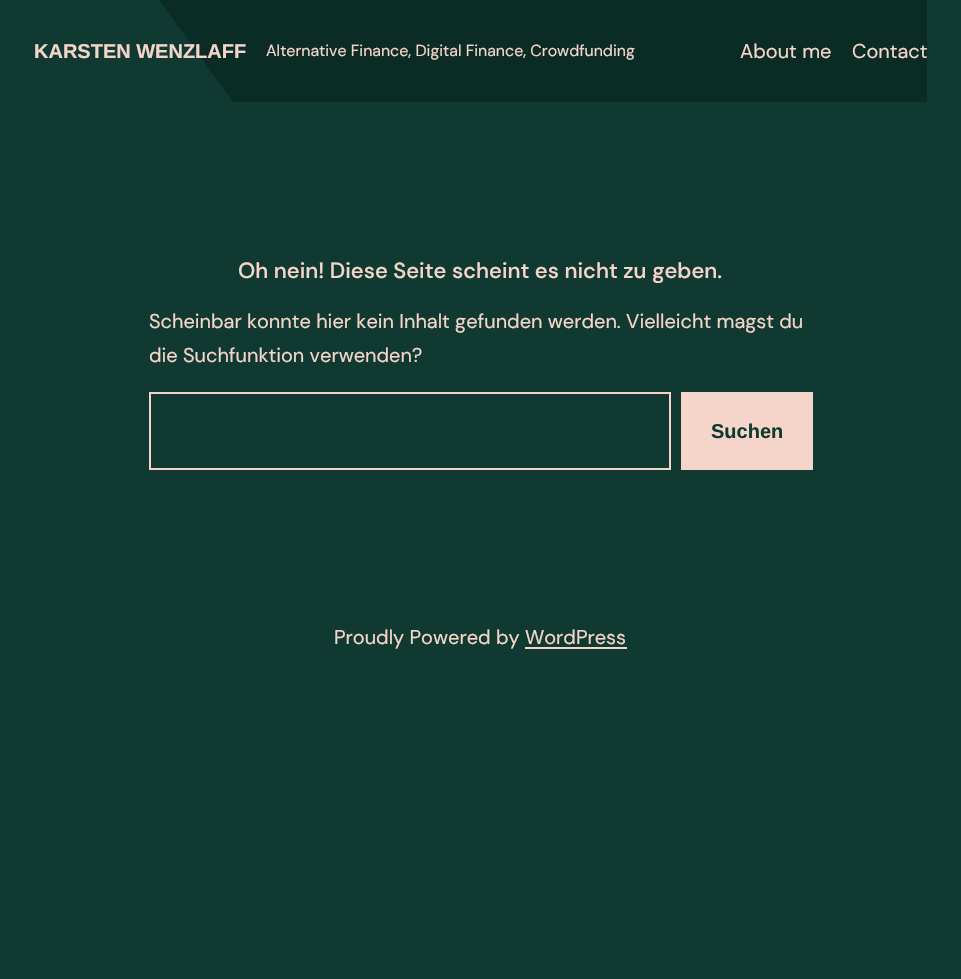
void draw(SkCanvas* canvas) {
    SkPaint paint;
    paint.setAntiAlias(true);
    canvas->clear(0xFF103931);
    paint.setColor(0xFF0A2C25);
    canvas->drawPath(SkPathBuilder().moveTo(159, 0).lineTo(233, 102).lineTo(927, 102).lineTo(927, 0).close().detach(), paint);
    SkFont font1(fontMgr->matchFamilyStyle("Liberation Sans", SkFontStyle::Bold()), 20);
    font1.setSubpixel(true);
    paint.setColor(0xFFF5D5CA);
    canvas->drawString("KARSTEN WENZLAFF", 34, 58, font1, paint);
    SkFont font2(fontMgr->matchFamilyStyle("DM Sans", SkFontStyle::Normal()), 16);
    font2.setSubpixel(true);
    canvas->drawString("Alternative Finance, Digital Finance, Crowdfunding", 266, 56, font2, paint);
    SkFont font3(fontMgr->matchFamilyStyle("DM Sans", SkFontStyle::Normal()), 20);
    font3.setSubpixel(true);
    canvas->drawString("About me", 740, 58, font3, paint);
    canvas->drawString("Contact", 852, 58, font3, paint);
    SkFont font4(fontMgr->matchFamilyStyle("DM Sans", SkFontStyle(500, SkFontStyle::kNormal_Width, SkFontStyle::kUpright_Slant)), 22);
    font4.setSubpixel(true);
    canvas->drawString("Oh nein! Diese Seite scheint es nicht zu geben.", 238, 278, font4, paint);
    canvas->drawString("Scheinbar konnte hier kein Inhalt gefunden werden. Vielleicht magst du", 149, 328, font3, paint);
    canvas->drawString("die Suchfunktion verwenden?", 149, 362, font3, paint);
    paint.setStyle(SkPaint::kStroke_Style);
    paint.setStrokeWidth(2);
    canvas->drawRect(SkRect::MakeXYWH(150, 393, 520, 76), paint);
    paint.setStyle(SkPaint::kFill_Style);
    canvas->drawRect(SkRect::MakeXYWH(681, 392, 132, 78), paint);
    paint.setColor(0xFF103931);
    canvas->drawString("Suchen", 711, 438, font1, paint);
    paint.setColor(0xFFF5D5CA);
    canvas->drawString("Proudly Powered by WordPress", 334, 644, font3, paint);
    canvas->drawRect(SkRect::MakeXYWH(525, 647, 102, 2), paint);
}
